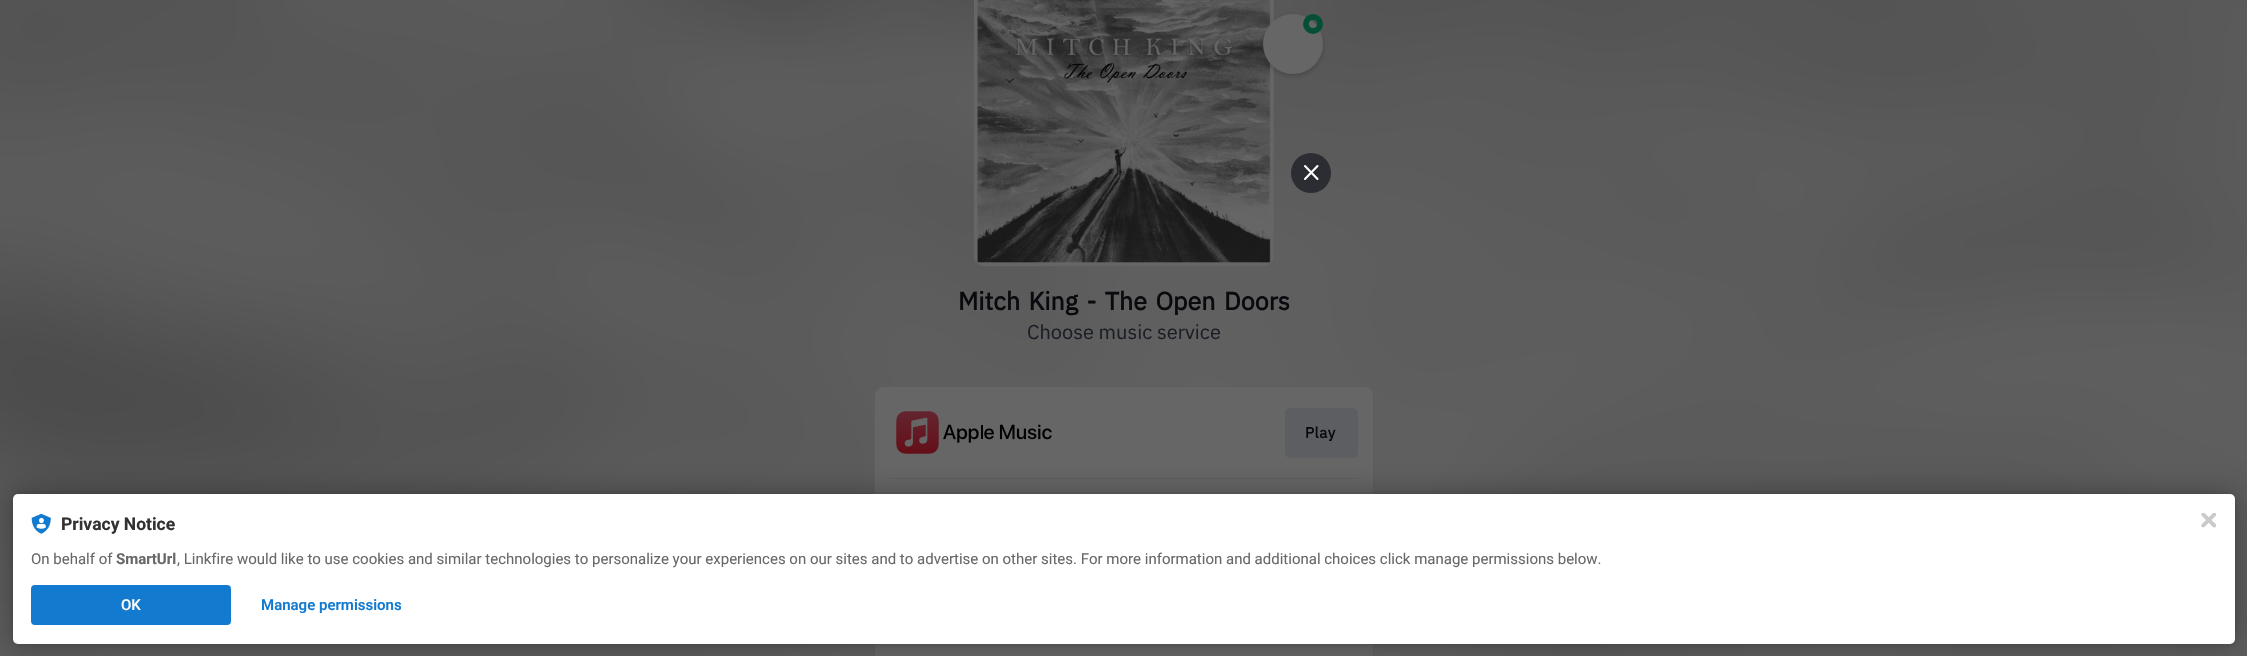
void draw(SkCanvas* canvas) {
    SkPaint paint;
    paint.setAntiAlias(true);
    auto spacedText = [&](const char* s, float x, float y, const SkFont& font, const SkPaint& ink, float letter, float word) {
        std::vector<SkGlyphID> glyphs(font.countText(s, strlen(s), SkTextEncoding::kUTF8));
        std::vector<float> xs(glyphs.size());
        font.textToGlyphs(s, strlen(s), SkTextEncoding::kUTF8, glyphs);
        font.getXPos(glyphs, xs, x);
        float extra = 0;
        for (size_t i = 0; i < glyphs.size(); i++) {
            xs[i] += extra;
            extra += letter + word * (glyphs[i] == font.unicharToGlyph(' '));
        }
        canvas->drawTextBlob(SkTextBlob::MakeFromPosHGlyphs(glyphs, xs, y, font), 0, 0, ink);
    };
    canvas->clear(0xFF666666);
    canvas->drawImageRect(SkImages::DeferredFromEncodedData(SkData::MakeFromFileName("img1.png")), SkRect::MakeXYWH(0, 0, 2247, 656), SkSamplingOptions());
    canvas->drawImageRect(SkImages::DeferredFromEncodedData(SkData::MakeFromFileName("img2.png")), SkRect::MakeXYWH(974, 0, 300, 266), SkSamplingOptions());
    paint.setColor(0x33000000);
    paint.setMaskFilter(SkMaskFilter::MakeBlur(kNormal_SkBlurStyle, 2.5f));
    canvas->drawRoundRect(SkRect::MakeXYWH(1263, 16, 60, 60), 30, 30, paint);
    paint.setMaskFilter(nullptr);
    paint.setColor(0xFF666666);
    canvas->drawCircle(1293, 44, 30, paint);
    paint.setStyle(SkPaint::kStroke_Style);
    paint.setStrokeWidth(6);
    paint.setColor(0xFF054F36);
    canvas->drawCircle(1313, 24, 7, paint);
    paint.setStyle(SkPaint::kFill_Style);
    paint.setColor(0xFF2C2C33);
    canvas->drawCircle(1311, 173, 20, paint);
    paint.setStyle(SkPaint::kStroke_Style);
    paint.setStrokeWidth(2.1f);
    paint.setStrokeCap(SkPaint::kRound_Cap);
    paint.setStrokeJoin(SkPaint::kRound_Join);
    paint.setColor(0xFFFFFFFF);
    canvas->drawPath(SkPathBuilder().moveTo(1305, 166).lineTo(1317.5f, 179).moveTo(1305, 179).lineTo(1317.5f, 166).detach(), paint);
    SkFont font1(fontMgr->matchFamilyStyle("IBM Plex Sans", SkFontStyle::Bold()), 25);
    font1.setSubpixel(true);
    paint.setStyle(SkPaint::kFill_Style);
    paint.setColor(0xFF0A090D);
    spacedText("Mitch King - The Open Doors", 958, 310, font1, paint, 0, 2.5f);
    SkFont font2(fontMgr->matchFamilyStyle("IBM Plex Sans", SkFontStyle::Normal()), 20);
    font2.setSubpixel(true);
    paint.setColor(0xFF1C1E26);
    canvas->drawString("Choose music service", 1027, 339, font2, paint);
    paint.setColor(0xFF666666);
    canvas->drawRoundRect(SkRect::MakeXYWH(874.5f, 386.5f, 499, 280), 9.5f, 9.5f, paint);
    paint.setStyle(SkPaint::kStroke_Style);
    paint.setStrokeWidth(1);
    paint.setStrokeCap(SkPaint::kButt_Cap);
    paint.setStrokeJoin(SkPaint::kMiter_Join);
    paint.setColor(0xFF5C5E61);
    canvas->drawRoundRect(SkRect::MakeXYWH(874.5f, 386.5f, 499, 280), 9.5f, 9.5f, paint);
    canvas->drawImageRect(SkImages::DeferredFromEncodedData(SkData::MakeFromFileName("img3.png")), SkRect::MakeXYWH(896, 411, 156, 43), SkSamplingOptions());
    paint.setStyle(SkPaint::kFill_Style);
    canvas->drawRoundRect(SkRect::MakeXYWH(1285, 408, 73, 50), 5, 5, paint);
    SkFont font3(fontMgr->matchFamilyStyle("IBM Plex Sans", SkFontStyle::Bold()), 15);
    font3.setSubpixel(true);
    paint.setColor(0xFF0A090D);
    spacedText("Play", 1305, 438, font3, paint, 0.5f, 0);
    paint.setColor(0xFF5C5E61);
    canvas->drawRect(SkRect::MakeXYWH(890, 478, 468, 1), paint);
    paint.setColor(0x1F000000);
    paint.setMaskFilter(SkMaskFilter::MakeBlur(kNormal_SkBlurStyle, 2.5f));
    canvas->drawRoundRect(SkRect::MakeXYWH(13, 494, 2222, 150), 5, 5, paint);
    paint.setMaskFilter(nullptr);
    paint.setColor(0x4D000000);
    paint.setMaskFilter(SkMaskFilter::MakeBlur(kNormal_SkBlurStyle, 15));
    canvas->drawRoundRect(SkRect::MakeXYWH(13, 494, 2222, 150), 5, 5, paint);
    paint.setMaskFilter(nullptr);
    paint.setColor(0xFFFFFFFF);
    canvas->drawRoundRect(SkRect::MakeXYWH(13, 494, 2222, 150), 5, 5, paint);
    canvas->drawImageRect(SkImages::DeferredFromEncodedData(SkData::MakeFromFileName("img4.png")), SkRect::MakeXYWH(31, 514, 20, 20), SkSamplingOptions());
    SkFont font4(fontMgr->matchFamilyStyle("Roboto", SkFontStyle::Bold()), 17.5f);
    font4.setSubpixel(true);
    paint.setColor(0xFF323232);
    canvas->drawString("Privacy Notice", 61, 530, font4, paint);
    SkFont font5(fontMgr->matchFamilyStyle("Roboto", SkFontStyle::Normal()), 15);
    font5.setSubpixel(true);
    paint.setColor(0xFF686868);
    canvas->drawString("On behalf of", 31, 564, font5, paint);
    SkFont font6(fontMgr->matchFamilyStyle("Roboto", SkFontStyle::Bold()), 15);
    font6.setSubpixel(true);
    canvas->drawString("SmartUrl", 116, 564, font6, paint);
    canvas->drawString(", Linkfire would like to use cookies and similar technologies to personalize your experiences on our sites and to advertise on other sites. For more information and additional choices click manage permissions below.", 177, 564, font5, paint);
    paint.setColor(0xFF137BCF);
    canvas->drawRoundRect(SkRect::MakeXYWH(31, 585, 200, 40), 4, 4, paint);
    SkFont font7(fontMgr->matchFamilyStyle("Roboto", SkFontStyle(500, SkFontStyle::kNormal_Width, SkFontStyle::kUpright_Slant)), 15);
    font7.setSubpixel(true);
    paint.setColor(0xFFFFFFFF);
    canvas->drawString("OK", 121, 610, font7, paint);
    SkFont font8(fontMgr->matchFamilyStyle("Roboto", SkFontStyle(600, SkFontStyle::kNormal_Width, SkFontStyle::kUpright_Slant)), 15);
    font8.setSubpixel(true);
    paint.setColor(0xFF137BCF);
    canvas->drawString("Manage permissions", 261, 610, font8, paint);
    canvas->drawImageRect(SkImages::DeferredFromEncodedData(SkData::MakeFromFileName("img5.png")), SkRect::MakeXYWH(2201, 513, 15, 15), SkSamplingOptions());
}
